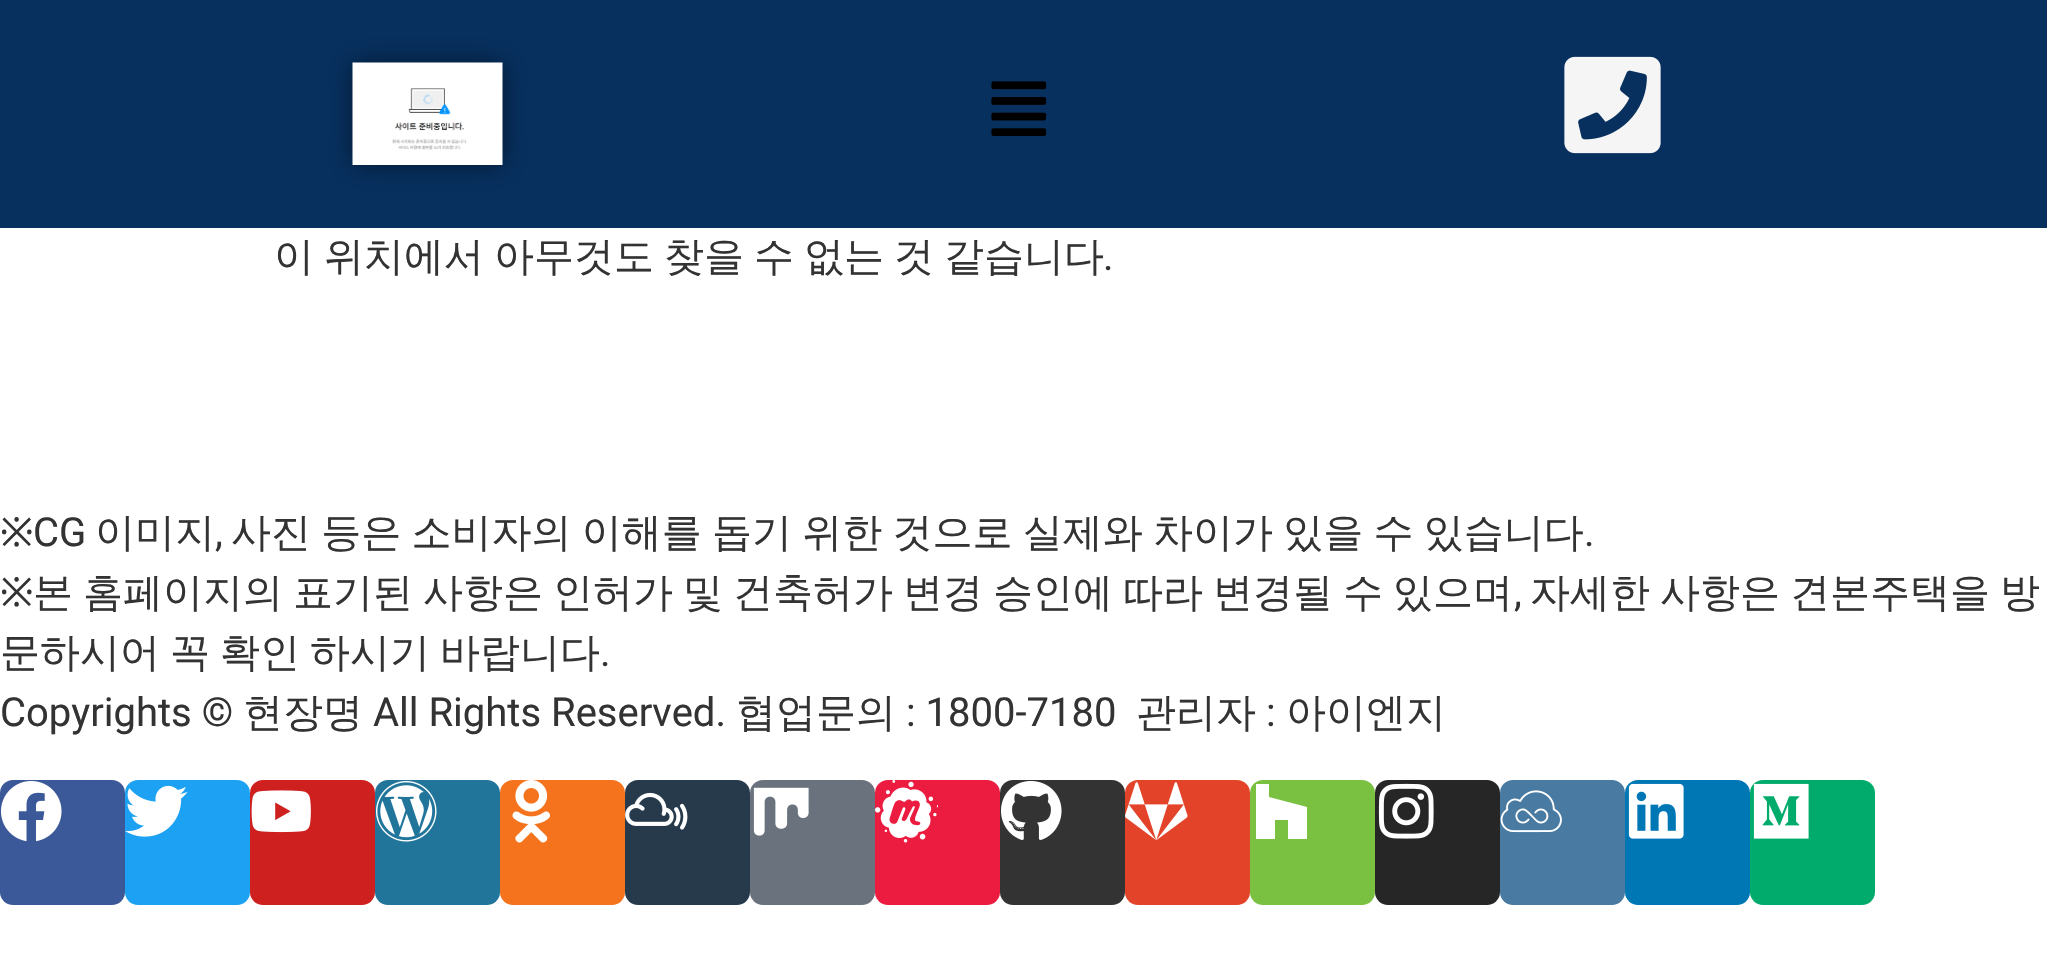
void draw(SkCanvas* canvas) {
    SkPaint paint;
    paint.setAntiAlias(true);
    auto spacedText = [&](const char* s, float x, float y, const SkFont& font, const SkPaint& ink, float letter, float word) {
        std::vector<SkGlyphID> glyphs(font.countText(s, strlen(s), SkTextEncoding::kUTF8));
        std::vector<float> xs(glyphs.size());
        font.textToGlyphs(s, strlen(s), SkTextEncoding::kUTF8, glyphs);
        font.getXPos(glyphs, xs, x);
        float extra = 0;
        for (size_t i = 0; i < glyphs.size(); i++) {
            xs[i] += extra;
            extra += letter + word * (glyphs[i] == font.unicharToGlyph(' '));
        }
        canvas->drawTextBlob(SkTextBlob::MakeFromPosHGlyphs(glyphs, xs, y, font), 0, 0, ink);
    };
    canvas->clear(0xFFFFFFFF);
    paint.setColor(0xFF07305F);
    canvas->drawRect(SkRect::MakeXYWH(0, 0, 2047, 228), paint);
    paint.setColor(0x80000000);
    paint.setMaskFilter(SkMaskFilter::MakeBlur(kNormal_SkBlurStyle, 12.5f));
    canvas->drawRect(SkRect::MakeXYWH(353, 63, 150, 102), paint);
    paint.setMaskFilter(nullptr);
    canvas->drawImageRect(SkImages::DeferredFromEncodedData(SkData::MakeFromFileName("img1.png")), SkRect::MakeXYWH(352, 62, 151, 103), SkSamplingOptions());
    canvas->drawImageRect(SkImages::DeferredFromEncodedData(SkData::MakeFromFileName("img2.png")), SkRect::MakeXYWH(991, 81, 56, 56), SkSamplingOptions());
    canvas->drawImageRect(SkImages::DeferredFromEncodedData(SkData::MakeFromFileName("img3.png")), SkRect::MakeXYWH(1564, 56, 97, 98), SkSamplingOptions());
    SkFont font1(fontMgr->matchFamilyStyle("WenQuanYi Zen Hei", SkFontStyle(500, SkFontStyle::kNormal_Width, SkFontStyle::kUpright_Slant)), 40);
    font1.setSubpixel(true);
    paint.setColor(0xFF333333);
    spacedText("이 위치에서 아무것도 찾을 수 없는 것 같습니다", 274, 270, font1, paint, 0, -2);
    SkFont font2(fontMgr->matchFamilyStyle("Roboto", SkFontStyle::Normal()), 40);
    font2.setSubpixel(true);
    canvas->drawString(".", 1103, 270, font2, paint);
    SkFont font3(fontMgr->matchFamilyStyle("Noto Sans", SkFontStyle::Normal()), 40);
    font3.setSubpixel(true);
    canvas->drawString("※", 0, 546, font3, paint);
    canvas->drawString("CG", 33, 546, font2, paint);
    canvas->drawString("이미지", 95, 546, font1, paint);
    canvas->drawString(",", 215, 546, font2, paint);
    spacedText("사진 등은 소비자의 이해를 돕기 위한 것으로 실제와 차이가 있을 수 있습니다", 231, 546, font1, paint, 0, -1.75f);
    canvas->drawString(".", 1584, 546, font2, paint);
    canvas->drawString("※", 0, 606, font3, paint);
    spacedText("본 홈페이지의 표기된 사항은 인허가 및 건축허가 변경 승인에 따라 변경될 수 있으며", 33, 606, font1, paint, 0, -2);
    canvas->drawString(",", 1514, 606, font2, paint);
    spacedText("자세한 사항은 견본주택을 방", 1530, 606, font1, paint, 0, -2);
    spacedText("문하시어 꼭 확인 하시기 바랍니다", 0, 666, font1, paint, 0, -2);
    canvas->drawString(".", 600, 666, font2, paint);
    canvas->drawString("Copyrights ©", 0, 726, font2, paint);
    canvas->drawString("현장명", 243, 726, font1, paint);
    canvas->drawString("All Rights Reserved.", 373, 726, font2, paint);
    canvas->drawString("협업문의", 736, 726, font1, paint);
    canvas->drawString(": 1800-7180", 906, 726, font2, paint);
    canvas->drawString("관리자", 1136, 726, font1, paint);
    canvas->drawString(":", 1266, 726, font2, paint);
    canvas->drawString("아이엔지", 1286, 726, font1, paint);
    paint.setColor(0xFF3B5998);
    canvas->drawRoundRect(SkRect::MakeXYWH(0, 780, 125, 125), 13, 13, paint);
    canvas->drawImageRect(SkImages::DeferredFromEncodedData(SkData::MakeFromFileName("img4.png")), SkRect::MakeXYWH(1, 781, 61, 61), SkSamplingOptions());
    paint.setColor(0xFF1DA1F2);
    canvas->drawRoundRect(SkRect::MakeXYWH(125, 780, 125, 125), 13, 13, paint);
    canvas->drawImageRect(SkImages::DeferredFromEncodedData(SkData::MakeFromFileName("img5.png")), SkRect::MakeXYWH(125, 785, 63, 52), SkSamplingOptions());
    paint.setColor(0xFFCD201F);
    canvas->drawRoundRect(SkRect::MakeXYWH(250, 780, 125, 125), 13, 13, paint);
    canvas->drawImageRect(SkImages::DeferredFromEncodedData(SkData::MakeFromFileName("img6.png")), SkRect::MakeXYWH(251, 790, 60, 43), SkSamplingOptions());
    paint.setColor(0xFF21759B);
    canvas->drawRoundRect(SkRect::MakeXYWH(375, 780, 125, 125), 13, 13, paint);
    canvas->drawImageRect(SkImages::DeferredFromEncodedData(SkData::MakeFromFileName("img7.png")), SkRect::MakeXYWH(376, 781, 61, 61), SkSamplingOptions());
    paint.setColor(0xFFF4731C);
    canvas->drawRoundRect(SkRect::MakeXYWH(500, 780, 125, 125), 13, 13, paint);
    canvas->drawImageRect(SkImages::DeferredFromEncodedData(SkData::MakeFromFileName("img8.png")), SkRect::MakeXYWH(512, 780, 38, 63), SkSamplingOptions());
    paint.setColor(0xFF273A4B);
    canvas->drawRoundRect(SkRect::MakeXYWH(625, 780, 125, 125), 13, 13, paint);
    canvas->drawImageRect(SkImages::DeferredFromEncodedData(SkData::MakeFromFileName("img9.png")), SkRect::MakeXYWH(625, 792, 63, 38), SkSamplingOptions());
    paint.setColor(0xFF69727D);
    canvas->drawRoundRect(SkRect::MakeXYWH(750, 780, 125, 125), 13, 13, paint);
    canvas->drawImageRect(SkImages::DeferredFromEncodedData(SkData::MakeFromFileName("img10.png")), SkRect::MakeXYWH(753, 787, 56, 49), SkSamplingOptions());
    paint.setColor(0xFFEC1C40);
    canvas->drawRoundRect(SkRect::MakeXYWH(875, 780, 125, 125), 13, 13, paint);
    canvas->drawImageRect(SkImages::DeferredFromEncodedData(SkData::MakeFromFileName("img11.png")), SkRect::MakeXYWH(875, 780, 63, 63), SkSamplingOptions());
    paint.setColor(0xFF333333);
    canvas->drawRoundRect(SkRect::MakeXYWH(1000, 780, 125, 125), 13, 13, paint);
    canvas->drawImageRect(SkImages::DeferredFromEncodedData(SkData::MakeFromFileName("img12.png")), SkRect::MakeXYWH(1001, 781, 61, 59), SkSamplingOptions());
    paint.setColor(0xFFE24329);
    canvas->drawRoundRect(SkRect::MakeXYWH(1125, 780, 125, 125), 13, 13, paint);
    canvas->drawImageRect(SkImages::DeferredFromEncodedData(SkData::MakeFromFileName("img13.png")), SkRect::MakeXYWH(1125, 782, 63, 59), SkSamplingOptions());
    paint.setColor(0xFF7AC142);
    canvas->drawRoundRect(SkRect::MakeXYWH(1250, 780, 125, 125), 13, 13, paint);
    paint.setColor(0xFFFFFFFF);
    canvas->drawPath(SkPathBuilder().moveTo(1288, 820).lineTo(1275, 820).lineTo(1275, 839).lineTo(1256, 839).lineTo(1256, 784).lineTo(1269, 784).lineTo(1269, 797).lineTo(1307, 807).lineTo(1307, 839).lineTo(1288, 839).close().detach(), paint);
    paint.setColor(0xFF262626);
    canvas->drawRoundRect(SkRect::MakeXYWH(1375, 780, 125, 125), 13, 13, paint);
    canvas->drawImageRect(SkImages::DeferredFromEncodedData(SkData::MakeFromFileName("img14.png")), SkRect::MakeXYWH(1378, 783, 56, 56), SkSamplingOptions());
    paint.setColor(0xFF487AA2);
    canvas->drawRoundRect(SkRect::MakeXYWH(1500, 780, 125, 125), 13, 13, paint);
    canvas->drawImageRect(SkImages::DeferredFromEncodedData(SkData::MakeFromFileName("img15.png")), SkRect::MakeXYWH(1500, 790, 62, 43), SkSamplingOptions());
    paint.setColor(0xFF0077B5);
    canvas->drawRoundRect(SkRect::MakeXYWH(1625, 780, 125, 125), 13, 13, paint);
    canvas->drawImageRect(SkImages::DeferredFromEncodedData(SkData::MakeFromFileName("img16.png")), SkRect::MakeXYWH(1628, 783, 56, 56), SkSamplingOptions());
    paint.setColor(0xFF00AB6B);
    canvas->drawRoundRect(SkRect::MakeXYWH(1750, 780, 125, 125), 13, 13, paint);
    canvas->drawImageRect(SkImages::DeferredFromEncodedData(SkData::MakeFromFileName("img17.png")), SkRect::MakeXYWH(1753, 783, 56, 56), SkSamplingOptions());
}
